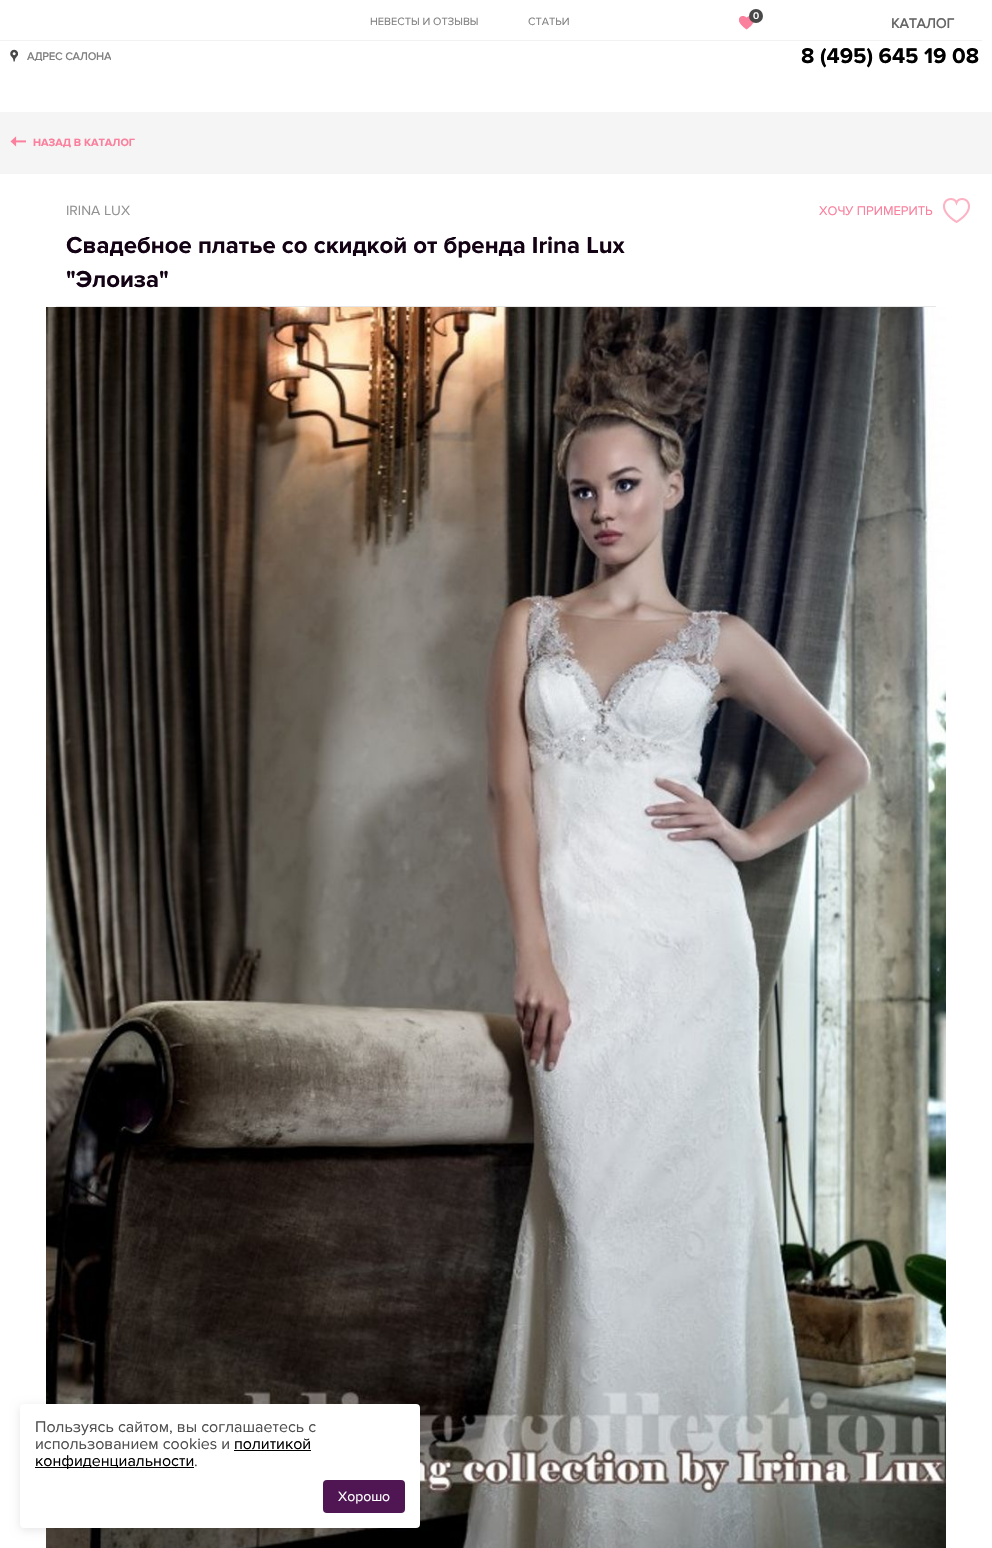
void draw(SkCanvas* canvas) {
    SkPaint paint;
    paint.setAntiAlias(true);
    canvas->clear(0xFFFFFFFF);
    canvas->drawImageRect(SkImages::DeferredFromEncodedData(SkData::MakeFromFileName("img1.png")), SkRect::MakeXYWH(739, 16, 15, 14), SkSamplingOptions());
    paint.setColor(0xFF484848);
    canvas->drawCircle(756, 16, 7, paint);
    SkFont font1(fontMgr->matchFamilyStyle("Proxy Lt", SkFontStyle(600, SkFontStyle::kNormal_Width, SkFontStyle::kUpright_Slant)), 10);
    font1.setSubpixel(true);
    paint.setColor(0xFFFFFFFF);
    canvas->drawString("0", 753, 19, font1, paint);
    SkFont font2(fontMgr->matchFamilyStyle("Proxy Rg", SkFontStyle::Normal()), 11);
    font2.setSubpixel(true);
    paint.setColor(0xFF808080);
    canvas->drawString("НЕВЕСТЫ И ОТЗЫВЫ", 370, 25, font2, paint);
    canvas->drawString("СТАТЬИ", 528, 25, font2, paint);
    canvas->drawImageRect(SkImages::DeferredFromEncodedData(SkData::MakeFromFileName("img2.png")), SkRect::MakeXYWH(10, 49, 8, 13), SkSamplingOptions());
    canvas->save();
    canvas->clipRect(SkRect::MakeXYWH(27, 42, 84, 19));
    SkFont font3(fontMgr->matchFamilyStyle("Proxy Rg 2", SkFontStyle::Bold()), 11);
    font3.setSubpixel(true);
    canvas->drawString("АДРЕС САЛОНА", 27, 60, font3, paint);
    canvas->restore();
    SkFont font4(fontMgr->matchFamilyStyle("Proxy Rg", SkFontStyle::Bold()), 22);
    font4.setSubpixel(true);
    paint.setColor(0xFF000000);
    canvas->drawString("8 (495) 645 19 08", 801, 63, font4, paint);
    paint.setColor(0xFFF2F2F2);
    canvas->drawRect(SkRect::MakeXYWH(0, 40, 982, 1), paint);
    SkFont font5(fontMgr->matchFamilyStyle("Proxy Rg 2", SkFontStyle::Bold()), 14);
    font5.setSubpixel(true);
    paint.setColor(0xFF666666);
    canvas->drawString("КАТАЛОГ", 891, 28, font5, paint);
    paint.setColor(0xFFF5F5F5);
    canvas->drawRect(SkRect::MakeXYWH(0, 112, 992, 62), paint);
    canvas->drawImageRect(SkImages::DeferredFromEncodedData(SkData::MakeFromFileName("img3.png")), SkRect::MakeXYWH(10, 136, 16, 11), SkSamplingOptions());
    SkFont font6(fontMgr->matchFamilyStyle("Proxy Rg", SkFontStyle::Bold()), 11);
    font6.setSubpixel(true);
    paint.setColor(0xFFFA809D);
    canvas->drawString("НАЗАД В КАТАЛОГ", 33, 146, font6, paint);
    SkFont font7(fontMgr->matchFamilyStyle("Proxy Rg", SkFontStyle::Normal()), 14);
    font7.setSubpixel(true);
    paint.setColor(0xFF929292);
    canvas->drawString("IRINA LUX", 66, 215, font7, paint);
    SkFont font8(fontMgr->matchFamilyStyle("Proxy Rg", SkFontStyle::Normal()), 13);
    font8.setSubpixel(true);
    paint.setColor(0xFFFA809D);
    canvas->drawString("ХОЧУ ПРИМЕРИТЬ", 819, 215, font8, paint);
    canvas->drawImageRect(SkImages::DeferredFromEncodedData(SkData::MakeFromFileName("img4.png")), SkRect::MakeXYWH(943, 198, 27, 25), SkSamplingOptions());
    paint.setColor(0xFFE7E7E7);
    canvas->drawRect(SkRect::MakeXYWH(56, 306, 880, 1), paint);
    SkFont font9(fontMgr->matchFamilyStyle("Proxy Rg", SkFontStyle::Bold()), 24);
    font9.setSubpixel(true);
    paint.setColor(0xFF130214);
    canvas->drawString("Свадебное платье со скидкой от бренда Irina Lux", 66, 253, font9, paint);
    canvas->drawString("\"Элоиза\"", 66, 287, font9, paint);
    canvas->drawImageRect(SkImages::DeferredFromEncodedData(SkData::MakeFromFileName("img5.png")), SkRect::MakeXYWH(46, 307, 900, 1241), SkSamplingOptions());
    paint.setColor(0x1A000000);
    paint.setMaskFilter(SkMaskFilter::MakeBlur(kNormal_SkBlurStyle, 5));
    canvas->drawRoundRect(SkRect::MakeXYWH(20, 1406, 400, 124), 4, 4, paint);
    paint.setMaskFilter(nullptr);
    paint.setColor(0xFFFFFFFF);
    canvas->drawRoundRect(SkRect::MakeXYWH(20, 1404, 400, 124), 4, 4, paint);
    SkFont font10(fontMgr->matchFamilyStyle("Proxy Rg", SkFontStyle::Normal()), 16);
    font10.setSubpixel(true);
    paint.setColor(0xFF4F4F4F);
    canvas->drawString("Пользуясь сайтом, вы соглашаетесь с", 35, 1432, font10, paint);
    canvas->drawString("использованием cookies и", 35, 1449, font10, paint);
    paint.setColor(0xFF000000);
    canvas->drawString("политикой", 234, 1449, font10, paint);
    canvas->drawRect(SkRect::MakeXYWH(234, 1450, 77, 1), paint);
    canvas->drawRect(SkRect::MakeXYWH(35, 1467, 159, 1), paint);
    canvas->drawString("конфиденциальности", 35, 1466, font10, paint);
    paint.setColor(0xFF4F4F4F);
    canvas->drawString(".", 194, 1466, font10, paint);
    paint.setColor(0xFF4F1653);
    canvas->drawRoundRect(SkRect::MakeXYWH(323, 1480, 82, 33), 4, 4, paint);
    paint.setColor(0xFFFFFFFF);
    canvas->drawString("Хорошо", 338, 1501, font7, paint);
}
